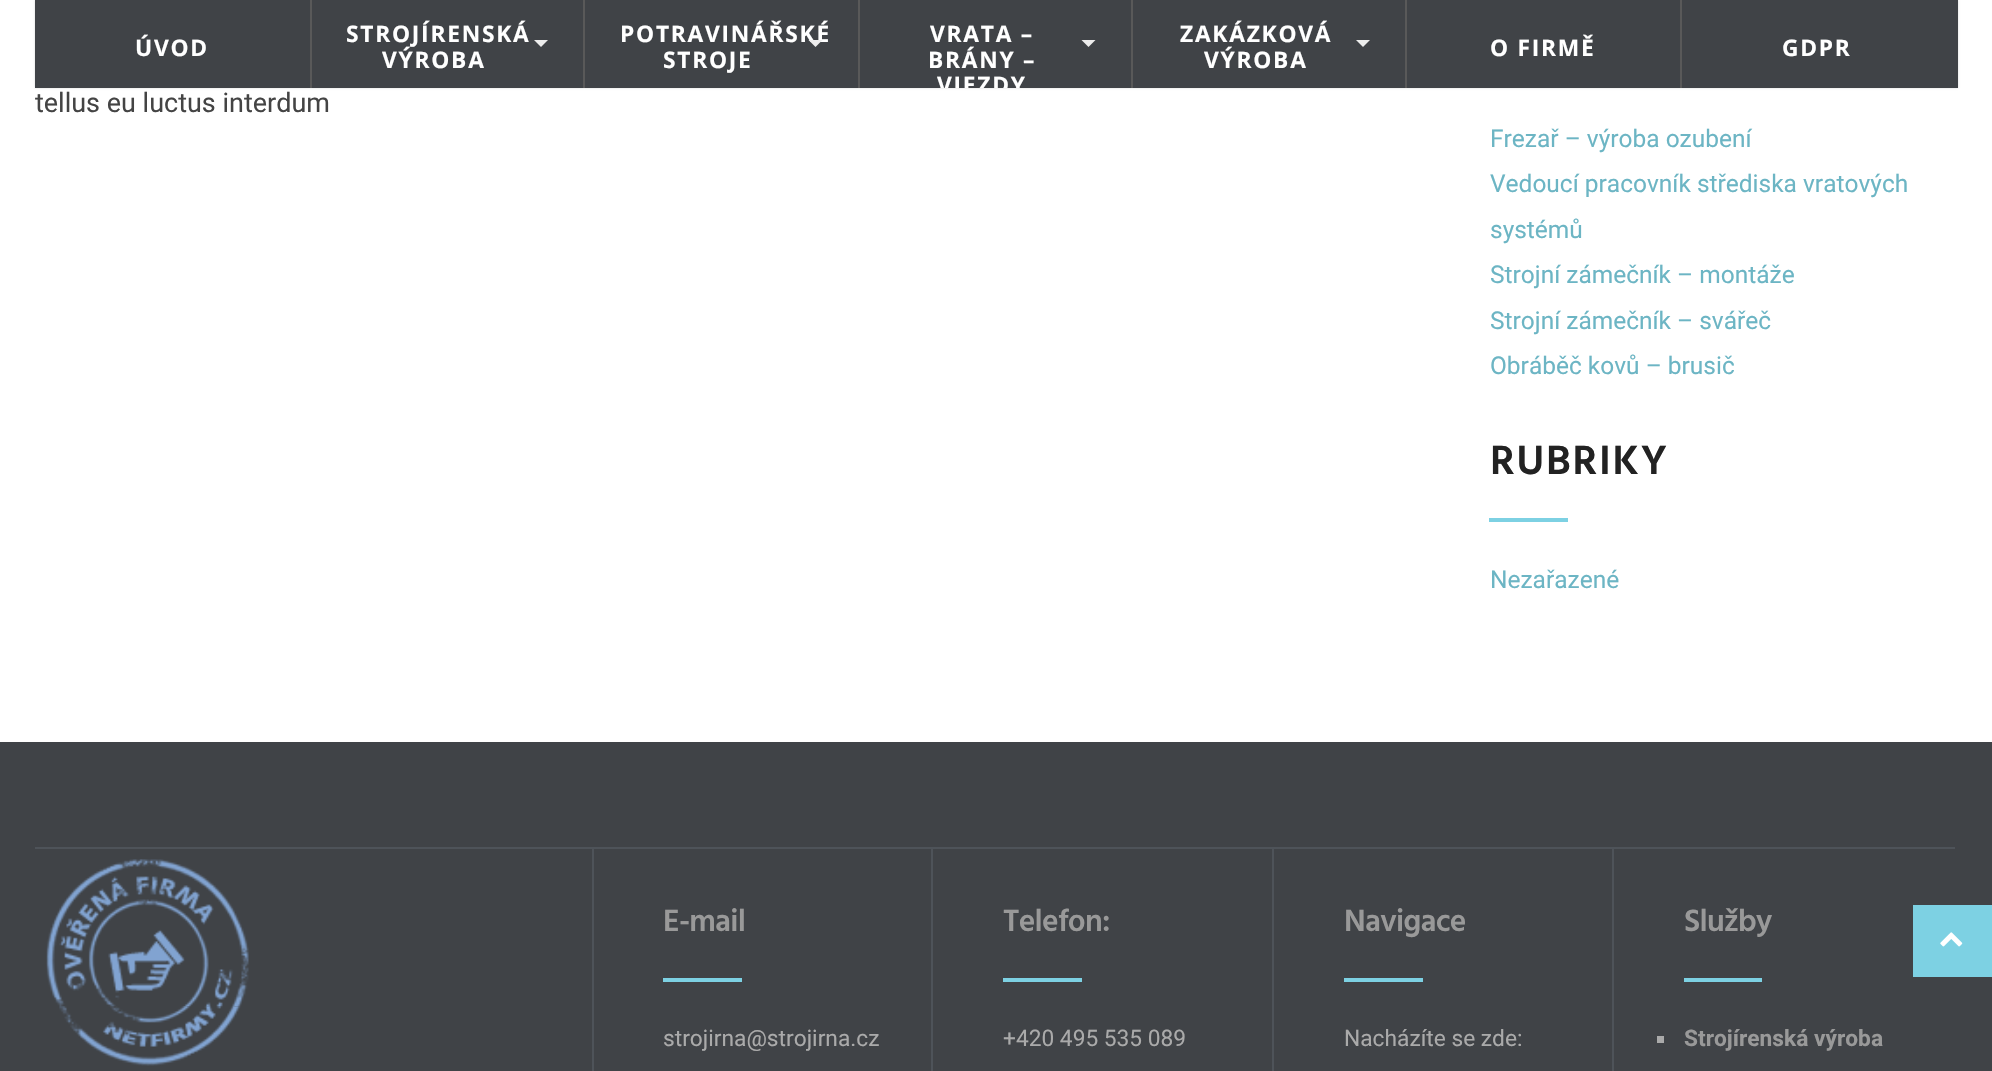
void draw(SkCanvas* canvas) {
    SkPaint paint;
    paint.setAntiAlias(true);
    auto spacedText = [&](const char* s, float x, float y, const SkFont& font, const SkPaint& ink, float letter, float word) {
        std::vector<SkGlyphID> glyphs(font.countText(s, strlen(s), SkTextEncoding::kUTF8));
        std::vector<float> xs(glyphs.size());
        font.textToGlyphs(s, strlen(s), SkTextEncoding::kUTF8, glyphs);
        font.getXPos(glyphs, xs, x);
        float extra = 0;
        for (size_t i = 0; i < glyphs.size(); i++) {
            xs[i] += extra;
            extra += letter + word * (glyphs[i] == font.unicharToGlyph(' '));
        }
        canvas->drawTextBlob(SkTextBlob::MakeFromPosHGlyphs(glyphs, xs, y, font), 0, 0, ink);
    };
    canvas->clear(0xFFFFFFFF);
    paint.setColor(0x26000000);
    paint.setMaskFilter(SkMaskFilter::MakeBlur(kNormal_SkBlurStyle, 1));
    canvas->drawRect(SkRect::MakeXYWH(35, 0, 1923, 88), paint);
    paint.setMaskFilter(nullptr);
    paint.setColor(0xFF404347);
    canvas->drawRect(SkRect::MakeXYWH(35, 0, 1923, 88), paint);
    SkFont font1(fontMgr->matchFamilyStyle("Open Sans", SkFontStyle::Bold()), 22.75f);
    font1.setSubpixel(true);
    paint.setColor(0xFFFFFFFF);
    spacedText("ÚVOD", 135, 56, font1, paint, 1.75f, 0);
    paint.setColor(0xFF595959);
    canvas->drawRect(SkRect::MakeXYWH(310, 0, 2, 88), paint);
    paint.setColor(0xFFFFFFFF);
    spacedText("STROJÍRENSKÁ", 346, 42, font1, paint, 1.75f, 0);
    paint.setColor(0xFFEDEDED);
    canvas->drawPath(SkPathBuilder().moveTo(534, 40).lineTo(548, 40).lineTo(541, 47).close().detach(), paint);
    paint.setColor(0xFFFFFFFF);
    spacedText("VÝROBA", 382, 68, font1, paint, 1.75f, 0);
    paint.setColor(0xFF595959);
    canvas->drawRect(SkRect::MakeXYWH(583, 0, 2, 88), paint);
    paint.setColor(0xFFFFFFFF);
    spacedText("POTRAVINÁŘSKÉ", 620, 42, font1, paint, 1.75f, 0);
    paint.setColor(0xFFEDEDED);
    canvas->drawPath(SkPathBuilder().moveTo(808.5f, 40).lineTo(822.5f, 40).lineTo(815.5f, 47).close().detach(), paint);
    paint.setColor(0xFFFFFFFF);
    spacedText("STROJE", 663, 68, font1, paint, 1.75f, 0);
    paint.setColor(0xFF595959);
    canvas->drawRect(SkRect::MakeXYWH(858, 0, 2, 88), paint);
    paint.setColor(0xFFFFFFFF);
    spacedText("VRATA –", 930, 42, font1, paint, 1.75f, 0);
    paint.setColor(0xFFEDEDED);
    canvas->drawPath(SkPathBuilder().moveTo(1081.5f, 40).lineTo(1095.5f, 40).lineTo(1088.5f, 47).close().detach(), paint);
    paint.setColor(0xFFFFFFFF);
    spacedText("BRÁNY –", 928, 68, font1, paint, 1.75f, 0);
    canvas->save();
    canvas->clipRect(SkRect::MakeXYWH(859, 0, 272, 88));
    spacedText("VJEZDY", 937, 93, font1, paint, 1.75f, 0);
    canvas->restore();
    paint.setColor(0xFF595959);
    canvas->drawRect(SkRect::MakeXYWH(1131, 0, 2, 88), paint);
    paint.setColor(0xFFFFFFFF);
    spacedText("ZAKÁZKOVÁ", 1180, 42, font1, paint, 1.75f, 0);
    paint.setColor(0xFFEDEDED);
    canvas->drawPath(SkPathBuilder().moveTo(1356, 40).lineTo(1370, 40).lineTo(1363, 47).close().detach(), paint);
    paint.setColor(0xFFFFFFFF);
    spacedText("VÝROBA", 1204, 68, font1, paint, 1.75f, 0);
    paint.setColor(0xFF595959);
    canvas->drawRect(SkRect::MakeXYWH(1405, 0, 2, 88), paint);
    paint.setColor(0xFFFFFFFF);
    spacedText("O FIRMĚ", 1490, 56, font1, paint, 1.75f, 0);
    paint.setColor(0xFF595959);
    canvas->drawRect(SkRect::MakeXYWH(1680, 0, 2, 88), paint);
    paint.setColor(0xFFFFFFFF);
    spacedText("GDPR", 1782, 56, font1, paint, 1.75f, 0);
    SkFont font2(fontMgr->matchFamilyStyle("Roboto", SkFontStyle::Normal()), 27);
    font2.setSubpixel(true);
    paint.setColor(0xFF444444);
    canvas->drawString("tellus eu luctus interdum", 35, 112, font2, paint);
    SkFont font3(fontMgr->matchFamilyStyle("Roboto", SkFontStyle::Normal()), 24.5f);
    font3.setSubpixel(true);
    paint.setColor(0xFF6CB5C4);
    canvas->drawString("Frezař – výroba ozubení", 1490, 147, font3, paint);
    canvas->drawString("Vedoucí pracovník střediska vratových", 1490, 192, font3, paint);
    canvas->drawString("systémů", 1490, 238, font3, paint);
    canvas->drawString("Strojní zámečník – montáže", 1490, 283, font3, paint);
    canvas->drawString("Strojní zámečník – svářeč", 1490, 329, font3, paint);
    canvas->drawString("Obráběč kovů – brusič", 1490, 374, font3, paint);
    SkFont font4(fontMgr->matchFamilyStyle("Hind Siliguri", SkFontStyle(600, SkFontStyle::kNormal_Width, SkFontStyle::kUpright_Slant)), 42);
    font4.setSubpixel(true);
    paint.setColor(0xFF222222);
    spacedText("RUBRIKY", 1490, 474, font4, paint, 1.75f, 0);
    paint.setColor(0xFF7DD1E3);
    canvas->drawRect(SkRect::MakeXYWH(1489, 518, 79, 4), paint);
    paint.setColor(0xFF6CB5C4);
    canvas->drawString("Nezařazené", 1490, 588, font3, paint);
    paint.setColor(0xFF404347);
    canvas->drawRect(SkRect::MakeXYWH(0, 742, 1992, 329), paint);
    paint.setColor(0xFF4E5359);
    canvas->drawRect(SkRect::MakeXYWH(35, 847, 558, 2), paint);
    canvas->drawRect(SkRect::MakeXYWH(592, 847, 2, 224), paint);
    canvas->drawImageRect(SkImages::DeferredFromEncodedData(SkData::MakeFromFileName("img1.png")), SkRect::MakeXYWH(46, 859, 203, 148), SkSamplingOptions());
    canvas->drawImageRect(SkImages::DeferredFromEncodedData(SkData::MakeFromFileName("img2.png")), SkRect::MakeXYWH(59, 1006, 182, 60), SkSamplingOptions());
    canvas->drawRect(SkRect::MakeXYWH(593, 847, 1362, 2), paint);
    canvas->drawRect(SkRect::MakeXYWH(931, 847, 2, 224), paint);
    SkFont font5(fontMgr->matchFamilyStyle("Hind Siliguri", SkFontStyle(600, SkFontStyle::kNormal_Width, SkFontStyle::kUpright_Slant)), 31.5f);
    font5.setSubpixel(true);
    paint.setColor(0xFF999999);
    spacedText("E-mail", 663, 931, font5, paint, -0.75f, 0);
    paint.setColor(0xFF7DD1E3);
    canvas->drawRect(SkRect::MakeXYWH(663, 978, 79, 4), paint);
    SkFont font6(fontMgr->matchFamilyStyle("Roboto", SkFontStyle::Normal()), 22.75f);
    font6.setSubpixel(true);
    paint.setColor(0xFFAAAAAA);
    canvas->drawString("strojirna@strojirna.cz", 663, 1046, font6, paint);
    paint.setColor(0xFF4E5359);
    canvas->drawRect(SkRect::MakeXYWH(1272, 847, 2, 224), paint);
    paint.setColor(0xFF999999);
    spacedText("Telefon:", 1003, 931, font5, paint, -0.75f, 0);
    paint.setColor(0xFF7DD1E3);
    canvas->drawRect(SkRect::MakeXYWH(1003, 978, 79, 4), paint);
    paint.setColor(0xFFAAAAAA);
    canvas->drawString("+420 495 535 089", 1003, 1046, font6, paint);
    paint.setColor(0xFF4E5359);
    canvas->drawRect(SkRect::MakeXYWH(1612, 847, 2, 224), paint);
    paint.setColor(0xFF999999);
    spacedText("Navigace", 1344, 931, font5, paint, -0.75f, 0);
    paint.setColor(0xFF7DD1E3);
    canvas->drawRect(SkRect::MakeXYWH(1344, 978, 79, 4), paint);
    paint.setColor(0xFFAAAAAA);
    canvas->drawString("Nacházíte se zde:", 1344, 1046, font6, paint);
    paint.setColor(0xFF999999);
    spacedText("Služby", 1684, 931, font5, paint, -0.75f, 0);
    paint.setColor(0xFF7DD1E3);
    canvas->drawRect(SkRect::MakeXYWH(1684, 978, 78, 4), paint);
    paint.setColor(0xFFAAAAAA);
    canvas->drawRect(SkRect::MakeXYWH(1657, 1036, 7, 7), paint);
    SkFont font7(fontMgr->matchFamilyStyle("Roboto", SkFontStyle::Bold()), 22.75f);
    font7.setSubpixel(true);
    paint.setColor(0xFF999999);
    canvas->drawString("Strojírenská výroba", 1684, 1046, font7, paint);
    paint.setColor(0xFF7DD1E3);
    canvas->drawRect(SkRect::MakeXYWH(1913, 905, 79, 72), paint);
    canvas->drawImageRect(SkImages::DeferredFromEncodedData(SkData::MakeFromFileName("img3.png")), SkRect::MakeXYWH(1940, 932, 23, 15), SkSamplingOptions());
}
